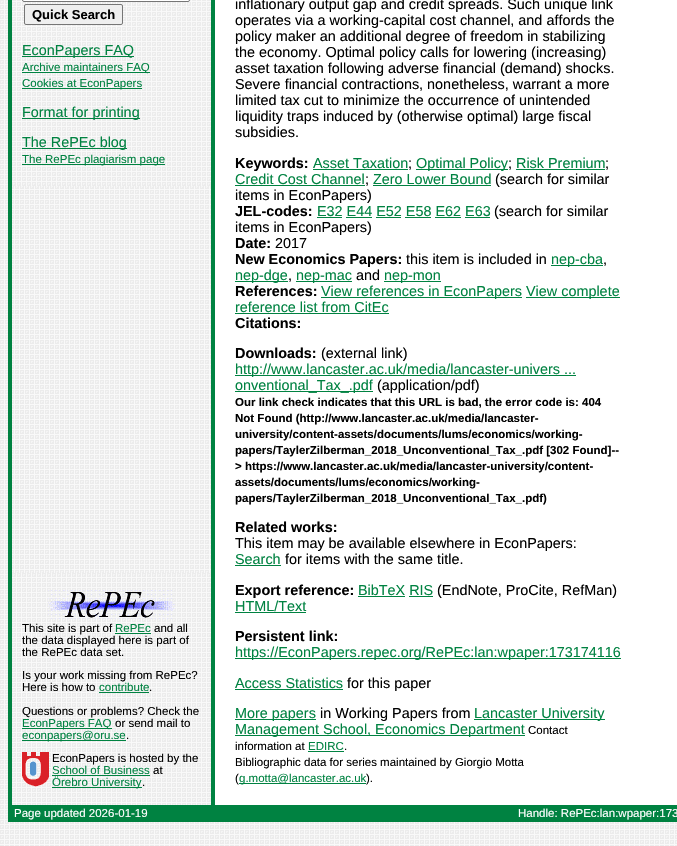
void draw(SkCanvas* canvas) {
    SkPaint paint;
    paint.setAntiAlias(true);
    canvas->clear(0xFFFFFFFF);
    canvas->drawImageRect(SkImages::DeferredFromEncodedData(SkData::MakeFromFileName("img1.png")), SkRect::MakeXYWH(0, 0, 677, 846), SkSamplingOptions());
    paint.setColor(0xFF008241);
    canvas->drawRect(SkRect::MakeXYWH(8, 0, 4, 822), paint);
    canvas->drawImageRect(SkImages::DeferredFromEncodedData(SkData::MakeFromFileName("img2.png")), SkRect::MakeXYWH(12, 0, 199, 186), SkSamplingOptions());
    paint.setColor(0xFFFFFFFF);
    canvas->drawRoundRect(SkRect::MakeXYWH(22.5f, -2.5f, 167, 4), 1.5f, 1.5f, paint);
    paint.setStyle(SkPaint::kStroke_Style);
    paint.setStrokeWidth(1);
    paint.setColor(0xFF767676);
    canvas->drawRoundRect(SkRect::MakeXYWH(22.5f, -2.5f, 167, 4), 1.5f, 1.5f, paint);
    paint.setStyle(SkPaint::kFill_Style);
    paint.setColor(0xFFEFEFEF);
    canvas->drawRoundRect(SkRect::MakeXYWH(24.5f, 4.5f, 98, 20), 1.5f, 1.5f, paint);
    paint.setStyle(SkPaint::kStroke_Style);
    paint.setColor(0xFF767676);
    canvas->drawRoundRect(SkRect::MakeXYWH(24.5f, 4.5f, 98, 20), 1.5f, 1.5f, paint);
    SkFont font1(fontMgr->matchFamilyStyle("Liberation Sans", SkFontStyle::Bold()), 13);
    font1.setSubpixel(true);
    paint.setStyle(SkPaint::kFill_Style);
    paint.setColor(0xFF000000);
    canvas->drawString("Quick Search", 32, 19, font1, paint);
    paint.setColor(0xFF008241);
    canvas->drawRect(SkRect::MakeXYWH(22, 56, 112, 1), paint);
    SkFont font2(fontMgr->matchFamilyStyle("Liberation Sans", SkFontStyle::Normal()), 14.4f);
    font2.setSubpixel(true);
    canvas->drawString("EconPapers FAQ", 22, 55, font2, paint);
    canvas->drawRect(SkRect::MakeXYWH(22, 72, 128, 1), paint);
    SkFont font3(fontMgr->matchFamilyStyle("Liberation Sans", SkFontStyle::Normal()), 11.5f);
    font3.setSubpixel(true);
    canvas->drawString("Archive maintainers FAQ", 22, 71, font3, paint);
    canvas->drawRect(SkRect::MakeXYWH(22, 88, 120, 1), paint);
    canvas->drawString("Cookies at EconPapers", 22, 87, font3, paint);
    canvas->drawRect(SkRect::MakeXYWH(22, 118, 118, 1), paint);
    canvas->drawString("Format for printing", 22, 117, font2, paint);
    canvas->drawRect(SkRect::MakeXYWH(22, 148, 105, 1), paint);
    canvas->drawString("The RePEc blog", 22, 147, font2, paint);
    canvas->drawRect(SkRect::MakeXYWH(22, 164, 143, 1), paint);
    canvas->drawString("The RePEc plagiarism page", 22, 163, font3, paint);
    canvas->drawRect(SkRect::MakeXYWH(211, 0, 4, 805), paint);
    paint.setColor(0xFFFFFFFF);
    canvas->drawRect(SkRect::MakeXYWH(215, 0, 462, 805), paint);
    paint.setColor(0xFF000000);
    canvas->drawString("inflationary output gap and credit spreads. Such unique link", 235, 9, font2, paint);
    canvas->drawString("operates via a working-capital cost channel, and affords the", 235, 25, font2, paint);
    canvas->drawString("policy maker an additional degree of freedom in stabilizing", 235, 41, font2, paint);
    canvas->drawString("the economy. Optimal policy calls for lowering (increasing)", 235, 57, font2, paint);
    canvas->drawString("asset taxation following adverse financial (demand) shocks.", 235, 73, font2, paint);
    canvas->drawString("Severe financial contractions, nonetheless, warrant a more", 235, 89, font2, paint);
    canvas->drawString("limited tax cut to minimize the occurrence of unintended", 235, 105, font2, paint);
    canvas->drawString("liquidity traps induced by (otherwise optimal) large fiscal", 235, 121, font2, paint);
    canvas->drawString("subsidies.", 235, 137, font2, paint);
    SkFont font4(fontMgr->matchFamilyStyle("Liberation Sans", SkFontStyle::Bold()), 14.4f);
    font4.setSubpixel(true);
    canvas->drawString("Keywords:", 235, 168, font4, paint);
    paint.setColor(0xFF008241);
    canvas->drawString("Asset Taxation", 313, 168, font2, paint);
    canvas->drawRect(SkRect::MakeXYWH(313, 169, 95, 1), paint);
    paint.setColor(0xFF000000);
    canvas->drawString(";", 408, 168, font2, paint);
    paint.setColor(0xFF008241);
    canvas->drawRect(SkRect::MakeXYWH(416, 169, 92, 1), paint);
    canvas->drawString("Optimal Policy", 416, 168, font2, paint);
    paint.setColor(0xFF000000);
    canvas->drawString(";", 508, 168, font2, paint);
    paint.setColor(0xFF008241);
    canvas->drawString("Risk Premium", 516, 168, font2, paint);
    canvas->drawRect(SkRect::MakeXYWH(516, 169, 89, 1), paint);
    paint.setColor(0xFF000000);
    canvas->drawString(";", 605, 168, font2, paint);
    paint.setColor(0xFF008241);
    canvas->drawString("Credit Cost Channel", 235, 184, font2, paint);
    canvas->drawRect(SkRect::MakeXYWH(235, 185, 130, 1), paint);
    paint.setColor(0xFF000000);
    canvas->drawString(";", 365, 184, font2, paint);
    paint.setColor(0xFF008241);
    canvas->drawString("Zero Lower Bound", 373, 184, font2, paint);
    canvas->drawRect(SkRect::MakeXYWH(373, 185, 118, 1), paint);
    paint.setColor(0xFF000000);
    canvas->drawString("(search for similar", 495, 184, font2, paint);
    canvas->drawString("items in EconPapers)", 235, 200, font2, paint);
    canvas->drawString("JEL-codes:", 235, 216, font4, paint);
    paint.setColor(0xFF008241);
    canvas->drawString("E32 E44 E52 E58 E62 E63", 317, 216, font2, paint);
    canvas->drawRect(SkRect::MakeXYWH(317, 217, 25, 1), paint);
    paint.setColor(0xFF000000);
    canvas->drawString("(search for similar", 494, 216, font2, paint);
    paint.setColor(0xFF008241);
    canvas->drawRect(SkRect::MakeXYWH(346, 217, 26, 1), paint);
    canvas->drawRect(SkRect::MakeXYWH(376, 217, 25, 1), paint);
    canvas->drawRect(SkRect::MakeXYWH(405, 217, 26, 1), paint);
    canvas->drawRect(SkRect::MakeXYWH(435, 217, 26, 1), paint);
    canvas->drawRect(SkRect::MakeXYWH(465, 217, 25, 1), paint);
    paint.setColor(0xFF000000);
    canvas->drawString("items in EconPapers)", 235, 232, font2, paint);
    canvas->drawString("Date:", 235, 248, font4, paint);
    canvas->drawString("2017", 275, 248, font2, paint);
    canvas->drawString("New Economics Papers:", 235, 264, font4, paint);
    canvas->drawString("this item is included in", 406, 264, font2, paint);
    paint.setColor(0xFF008241);
    canvas->drawRect(SkRect::MakeXYWH(551, 265, 52, 1), paint);
    canvas->drawString("nep-cba", 551, 264, font2, paint);
    paint.setColor(0xFF000000);
    canvas->drawString(",", 603, 264, font2, paint);
    paint.setColor(0xFF008241);
    canvas->drawRect(SkRect::MakeXYWH(235, 281, 53, 1), paint);
    canvas->drawString("nep-dge", 235, 280, font2, paint);
    paint.setColor(0xFF000000);
    canvas->drawString(",", 288, 280, font2, paint);
    paint.setColor(0xFF008241);
    canvas->drawRect(SkRect::MakeXYWH(296, 281, 56, 1), paint);
    canvas->drawString("nep-mac", 296, 280, font2, paint);
    paint.setColor(0xFF000000);
    canvas->drawString("and", 356, 280, font2, paint);
    paint.setColor(0xFF008241);
    canvas->drawRect(SkRect::MakeXYWH(384, 281, 57, 1), paint);
    canvas->drawString("nep-mon", 384, 280, font2, paint);
    paint.setColor(0xFF000000);
    canvas->drawString("References:", 235, 296, font4, paint);
    paint.setColor(0xFF008241);
    canvas->drawRect(SkRect::MakeXYWH(321, 297, 201, 1), paint);
    canvas->drawString("View references in EconPapers", 321, 296, font2, paint);
    canvas->drawRect(SkRect::MakeXYWH(526, 297, 94, 1), paint);
    canvas->drawString("View complete", 526, 296, font2, paint);
    canvas->drawString("reference list from CitEc", 235, 312, font2, paint);
    canvas->drawRect(SkRect::MakeXYWH(235, 313, 154, 1), paint);
    paint.setColor(0xFF000000);
    canvas->drawString("Citations:", 235, 328, font4, paint);
    canvas->drawString("Downloads:", 235, 358, font4, paint);
    canvas->drawString("(external link)", 321, 358, font2, paint);
    paint.setColor(0xFF008241);
    canvas->drawRect(SkRect::MakeXYWH(235, 375, 341, 1), paint);
    canvas->drawString("http://www.lancaster.ac.uk/media/lancaster-univers ...", 235, 374, font2, paint);
    canvas->drawRect(SkRect::MakeXYWH(235, 391, 138, 1), paint);
    canvas->drawString("onventional_Tax_.pdf", 235, 390, font2, paint);
    paint.setColor(0xFF000000);
    canvas->drawString("(application/pdf)", 377, 390, font2, paint);
    SkFont font5(fontMgr->matchFamilyStyle("Liberation Sans", SkFontStyle::Bold()), 11.5f);
    font5.setSubpixel(true);
    canvas->drawString("Our link check indicates that this URL is bad, the error code is: 404", 235, 406, font5, paint);
    canvas->drawString("Not Found (http://www.lancaster.ac.uk/media/lancaster-", 235, 422, font5, paint);
    canvas->drawString("university/content-assets/documents/lums/economics/working-", 235, 438, font5, paint);
    canvas->drawString("papers/TaylerZilberman_2018_Unconventional_Tax_.pdf [302 Found]--", 235, 454, font5, paint);
    canvas->drawString("> https://www.lancaster.ac.uk/media/lancaster-university/content-", 235, 470, font5, paint);
    canvas->drawString("assets/documents/lums/economics/working-", 235, 486, font5, paint);
    canvas->drawString("papers/TaylerZilberman_2018_Unconventional_Tax_.pdf)", 235, 502, font5, paint);
    canvas->drawString("Related works:", 235, 532, font4, paint);
    canvas->drawString("This item may be available elsewhere in EconPapers:", 235, 548, font2, paint);
    paint.setColor(0xFF008241);
    canvas->drawString("Search", 235, 564, font2, paint);
    canvas->drawRect(SkRect::MakeXYWH(235, 565, 46, 1), paint);
    paint.setColor(0xFF000000);
    canvas->drawString("for items with the same title.", 285, 564, font2, paint);
    canvas->drawString("Export reference:", 235, 595, font4, paint);
    paint.setColor(0xFF008241);
    canvas->drawString("BibTeX RIS", 358, 595, font2, paint);
    canvas->drawRect(SkRect::MakeXYWH(358, 596, 47, 1), paint);
    paint.setColor(0xFF000000);
    canvas->drawString("(EndNote, ProCite, RefMan)", 437, 595, font2, paint);
    paint.setColor(0xFF008241);
    canvas->drawRect(SkRect::MakeXYWH(409, 596, 24, 1), paint);
    canvas->drawString("HTML/Text", 235, 611, font2, paint);
    canvas->drawRect(SkRect::MakeXYWH(235, 612, 71, 1), paint);
    paint.setColor(0xFF000000);
    canvas->drawString("Persistent link:", 235, 641, font4, paint);
    paint.setColor(0xFF008241);
    canvas->drawRect(SkRect::MakeXYWH(235, 658, 386, 1), paint);
    canvas->drawString("https://EconPapers.repec.org/RePEc:lan:wpaper:173174116", 235, 657, font2, paint);
    canvas->drawString("Access Statistics", 235, 688, font2, paint);
    canvas->drawRect(SkRect::MakeXYWH(235, 689, 108, 1), paint);
    paint.setColor(0xFF000000);
    canvas->drawString("for this paper", 347, 688, font2, paint);
    paint.setColor(0xFF008241);
    canvas->drawRect(SkRect::MakeXYWH(235, 719, 81, 1), paint);
    canvas->drawString("More papers", 235, 718, font2, paint);
    paint.setColor(0xFF000000);
    canvas->drawString("in Working Papers from", 320, 718, font2, paint);
    paint.setColor(0xFF008241);
    canvas->drawRect(SkRect::MakeXYWH(474, 719, 131, 1), paint);
    canvas->drawString("Lancaster University", 474, 718, font2, paint);
    canvas->drawRect(SkRect::MakeXYWH(235, 735, 290, 1), paint);
    canvas->drawString("Management School, Economics Department", 235, 734, font2, paint);
    paint.setColor(0xFF000000);
    canvas->drawString("Contact", 528, 734, font3, paint);
    canvas->drawString("information at", 235, 750, font3, paint);
    paint.setColor(0xFF008241);
    canvas->drawString("EDIRC", 308, 750, font3, paint);
    paint.setColor(0xFF000000);
    canvas->drawString(".", 344, 750, font3, paint);
    paint.setColor(0xFF008241);
    canvas->drawRect(SkRect::MakeXYWH(308, 751, 36, 1), paint);
    paint.setColor(0xFF000000);
    canvas->drawString("Bibliographic data for series maintained by Giorgio Motta", 235, 766, font3, paint);
    canvas->drawString("(", 235, 782, font3, paint);
    paint.setColor(0xFF008241);
    canvas->drawRect(SkRect::MakeXYWH(239, 783, 127, 1), paint);
    canvas->drawString("g.motta@lancaster.ac.uk", 239, 782, font3, paint);
    paint.setColor(0xFF000000);
    canvas->drawString(").", 366, 782, font3, paint);
    canvas->drawImageRect(SkImages::DeferredFromEncodedData(SkData::MakeFromFileName("img3.png")), SkRect::MakeXYWH(12, 573, 199, 232), SkSamplingOptions());
    canvas->drawImageRect(SkImages::DeferredFromEncodedData(SkData::MakeFromFileName("img4.png")), SkRect::MakeXYWH(48, 590, 127, 29), SkSamplingOptions());
    canvas->drawString("This site is part of", 22, 632, font3, paint);
    paint.setColor(0xFF008241);
    canvas->drawString("RePEc", 115, 632, font3, paint);
    canvas->drawRect(SkRect::MakeXYWH(115, 633, 36, 1), paint);
    paint.setColor(0xFF000000);
    canvas->drawString("and all", 154, 632, font3, paint);
    canvas->drawString("the data displayed here is part of", 22, 644, font3, paint);
    canvas->drawString("the RePEc data set.", 22, 656, font3, paint);
    canvas->drawString("Is your work missing from RePEc?", 22, 679, font3, paint);
    canvas->drawString("Here is how to", 22, 691, font3, paint);
    paint.setColor(0xFF008241);
    canvas->drawString("contribute", 99, 691, font3, paint);
    canvas->drawRect(SkRect::MakeXYWH(99, 692, 50, 1), paint);
    paint.setColor(0xFF000000);
    canvas->drawString(".", 149, 691, font3, paint);
    canvas->drawString("Questions or problems? Check the", 22, 715, font3, paint);
    paint.setColor(0xFF008241);
    canvas->drawRect(SkRect::MakeXYWH(22, 728, 90, 1), paint);
    canvas->drawString("EconPapers FAQ", 22, 727, font3, paint);
    paint.setColor(0xFF000000);
    canvas->drawString("or send mail to", 115, 727, font3, paint);
    paint.setColor(0xFF008241);
    canvas->drawRect(SkRect::MakeXYWH(22, 740, 104, 1), paint);
    canvas->drawString("econpapers@oru.se", 22, 739, font3, paint);
    paint.setColor(0xFF000000);
    canvas->drawString(".", 126, 739, font3, paint);
    canvas->drawImageRect(SkImages::DeferredFromEncodedData(SkData::MakeFromFileName("img5.png")), SkRect::MakeXYWH(22, 752, 27, 35), SkSamplingOptions());
    canvas->drawString("EconPapers is hosted by the", 52, 762, font3, paint);
    paint.setColor(0xFF008241);
    canvas->drawString("School of Business", 52, 774, font3, paint);
    canvas->drawRect(SkRect::MakeXYWH(52, 775, 98, 1), paint);
    paint.setColor(0xFF000000);
    canvas->drawString("at", 153, 774, font3, paint);
    paint.setColor(0xFF008241);
    canvas->drawRect(SkRect::MakeXYWH(52, 787, 90, 1), paint);
    canvas->drawString("Örebro University", 52, 786, font3, paint);
    paint.setColor(0xFF000000);
    canvas->drawString(".", 142, 786, font3, paint);
    paint.setColor(0xFF008241);
    canvas->drawRect(SkRect::MakeXYWH(12, 805, 665, 17), paint);
    paint.setColor(0xFFFFFFFF);
    canvas->drawString("Page updated 2026-01-19", 14, 817, font3, paint);
    canvas->drawString("Handle: RePEc:lan:wpaper:173", 518, 817, font3, paint);
}
